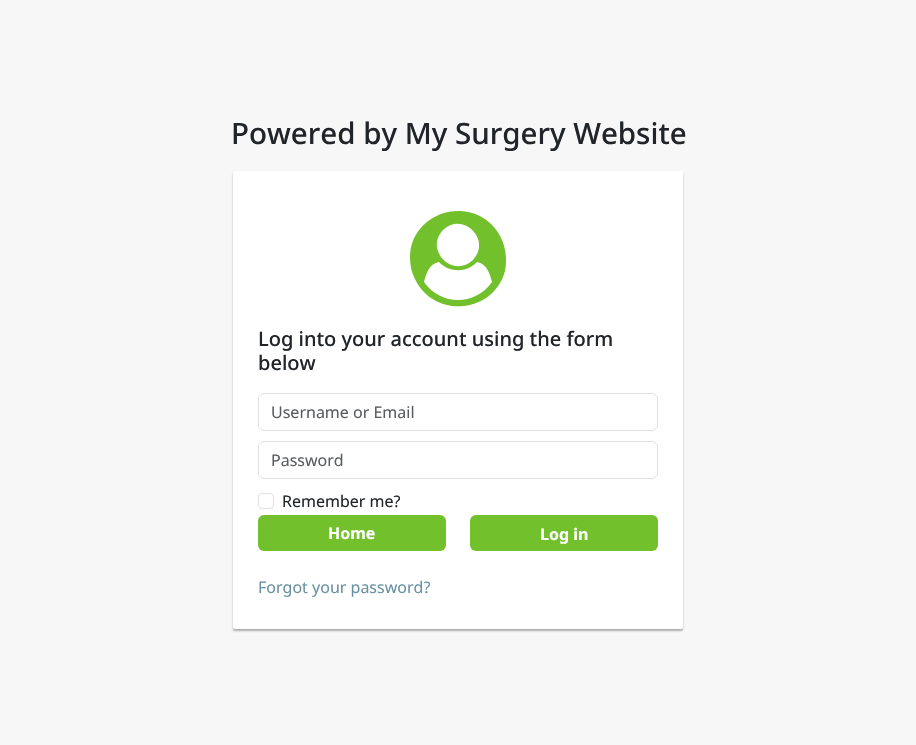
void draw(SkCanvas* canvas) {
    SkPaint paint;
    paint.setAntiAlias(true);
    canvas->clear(0xFFF7F7F7);
    SkFont font1(fontMgr->matchFamilyStyle("Noto Sans", SkFontStyle(500, SkFontStyle::kNormal_Width, SkFontStyle::kUpright_Slant)), 29.5f);
    font1.setSubpixel(true);
    paint.setColor(0xFF212529);
    canvas->drawString("Powered by My Surgery Website", 231, 144, font1, paint);
    paint.setColor(0x4D000000);
    paint.setMaskFilter(SkMaskFilter::MakeBlur(kNormal_SkBlurStyle, 1));
    canvas->drawRoundRect(SkRect::MakeXYWH(233, 173, 450, 458), 2, 2, paint);
    paint.setMaskFilter(nullptr);
    paint.setColor(0xFFFFFFFF);
    canvas->drawRoundRect(SkRect::MakeXYWH(233, 171, 450, 458), 2, 2, paint);
    paint.setColor(0xFF72C02C);
    canvas->drawPath(SkPathBuilder().moveTo(492, 282).cubicTo(490, 274, 487, 264, 477, 262).cubicTo(467, 273, 449, 273, 439, 262).cubicTo(429, 264, 426, 274, 424, 282).cubicTo(441, 306, 475, 306, 492, 282).close().moveTo(473, 260).cubicTo(492, 240, 463, 211, 443, 230).cubicTo(424, 250, 453, 279, 473, 260).close().moveTo(502, 240).cubicTo(506, 250, 507, 260, 505, 271).cubicTo(493, 315, 432, 319, 414, 277).cubicTo(410, 268, 409, 257, 411, 247).cubicTo(423, 203, 484, 198, 502, 240).close().detach(), paint);
    SkFont font2(fontMgr->matchFamilyStyle("Noto Sans", SkFontStyle(500, SkFontStyle::kNormal_Width, SkFontStyle::kUpright_Slant)), 20);
    font2.setSubpixel(true);
    paint.setColor(0xFF212529);
    canvas->drawString("Log into your account using the form", 258, 346, font2, paint);
    canvas->drawString("below", 258, 370, font2, paint);
    paint.setStyle(SkPaint::kStroke_Style);
    paint.setStrokeWidth(1);
    paint.setColor(0xFFDEE2E6);
    canvas->drawRoundRect(SkRect::MakeXYWH(258.5f, 393.5f, 399, 37), 5.5f, 5.5f, paint);
    SkFont font3(fontMgr->matchFamilyStyle("Noto Sans", SkFontStyle::Normal()), 16);
    font3.setSubpixel(true);
    paint.setStyle(SkPaint::kFill_Style);
    paint.setColor(0xFF595C5F);
    canvas->drawString("Username or Email", 271, 418, font3, paint);
    paint.setStyle(SkPaint::kStroke_Style);
    paint.setColor(0xFFDEE2E6);
    canvas->drawRoundRect(SkRect::MakeXYWH(258.5f, 441.5f, 399, 37), 5.5f, 5.5f, paint);
    paint.setStyle(SkPaint::kFill_Style);
    paint.setColor(0xFF595C5F);
    canvas->drawString("Password", 271, 466, font3, paint);
    paint.setStyle(SkPaint::kStroke_Style);
    paint.setColor(0xFFDEE2E6);
    canvas->drawRoundRect(SkRect::MakeXYWH(258.5f, 493.5f, 15, 15), 3.5f, 3.5f, paint);
    paint.setStyle(SkPaint::kFill_Style);
    paint.setColor(0xFF212529);
    canvas->drawString("Remember me?", 282, 507, font3, paint);
    paint.setColor(0xFF72C02C);
    canvas->drawRoundRect(SkRect::MakeXYWH(258, 515, 188, 36), 6, 6, paint);
    SkFont font4(fontMgr->matchFamilyStyle("Noto Sans", SkFontStyle::Bold()), 16);
    font4.setSubpixel(true);
    paint.setColor(0xFFFFFFFF);
    canvas->drawString("Home", 328, 539, font4, paint);
    paint.setColor(0xFF72C02C);
    canvas->drawRoundRect(SkRect::MakeXYWH(470, 515, 188, 36), 6, 6, paint);
    paint.setColor(0xFFFFFFFF);
    canvas->drawString("Log in", 540, 540, font4, paint);
    paint.setColor(0xFF6891A2);
    canvas->drawString("Forgot your password?", 258, 593, font3, paint);
}
